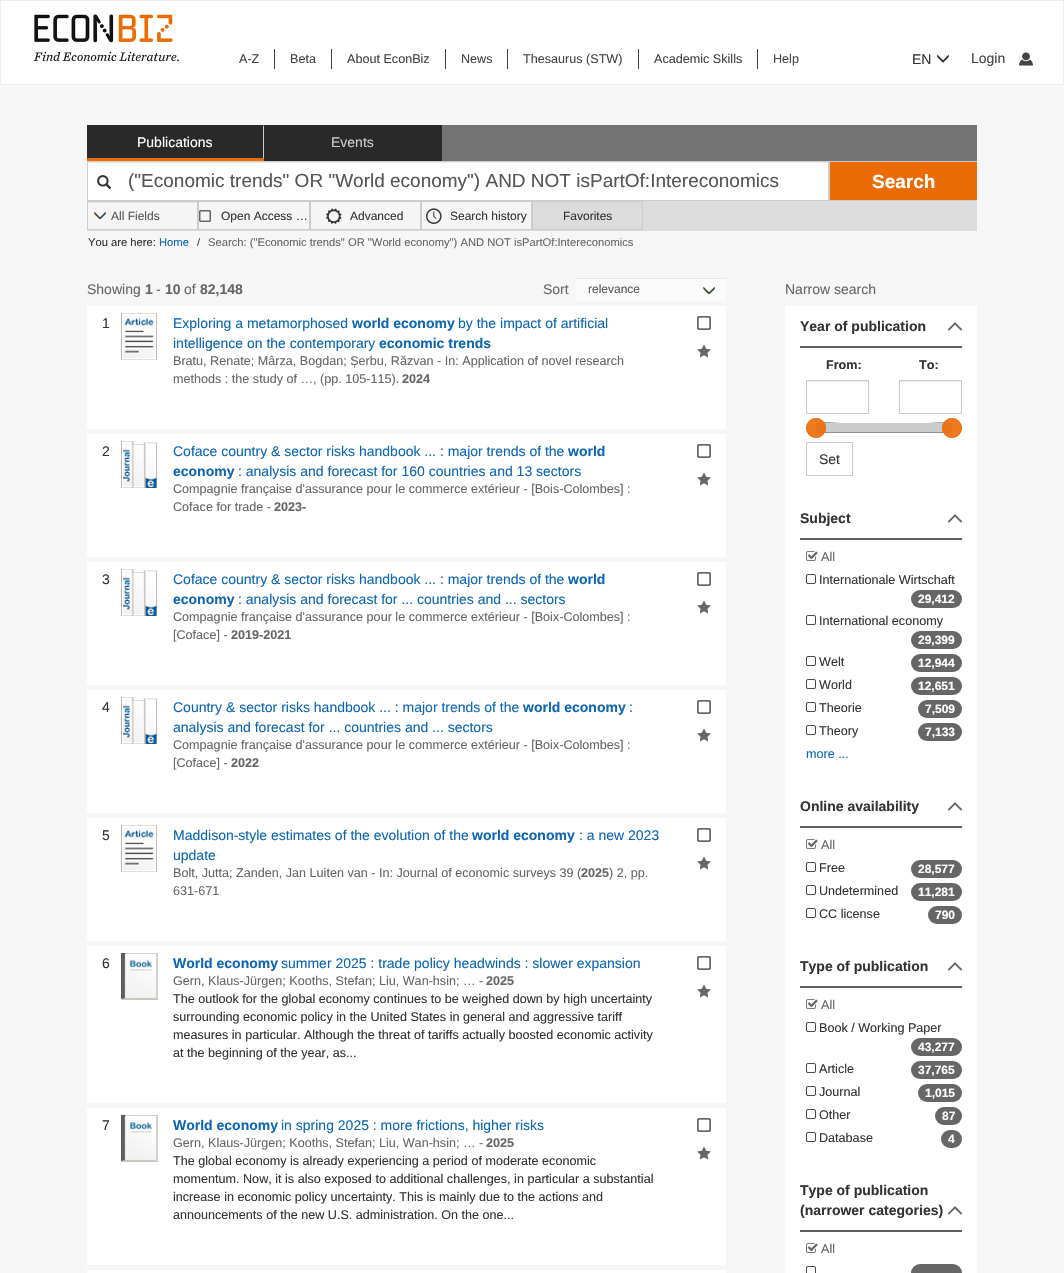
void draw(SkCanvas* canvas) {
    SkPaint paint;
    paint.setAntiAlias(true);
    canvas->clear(0xFFF6F6F6);
    paint.setColor(0xFFFFFFFF);
    canvas->drawRect(SkRect::MakeXYWH(0.5f, 0.5f, 1063, 84), paint);
    paint.setStyle(SkPaint::kStroke_Style);
    paint.setStrokeWidth(1);
    paint.setColor(0xFFEEEEEE);
    canvas->drawRect(SkRect::MakeXYWH(0.5f, 0.5f, 1063, 84), paint);
    canvas->drawImageRect(SkImages::DeferredFromEncodedData(SkData::MakeFromFileName("img1.png")), SkRect::MakeXYWH(33, 14, 146, 48), SkSamplingOptions());
    SkFont font1(fontMgr->matchFamilyStyle("Liberation Sans", SkFontStyle::Normal()), 12.6f);
    font1.setSubpixel(true);
    paint.setStyle(SkPaint::kFill_Style);
    paint.setColor(0xFF444444);
    canvas->drawString("A-Z", 239, 63, font1, paint);
    canvas->drawRect(SkRect::MakeXYWH(274, 49, 1, 20), paint);
    canvas->drawString("Beta", 290, 63, font1, paint);
    canvas->drawRect(SkRect::MakeXYWH(331, 49, 1, 20), paint);
    canvas->drawString("About EconBiz", 347, 63, font1, paint);
    canvas->drawRect(SkRect::MakeXYWH(445, 49, 1, 20), paint);
    canvas->drawString("News", 461, 63, font1, paint);
    canvas->drawRect(SkRect::MakeXYWH(507, 49, 1, 20), paint);
    canvas->drawString("Thesaurus (STW)", 523, 63, font1, paint);
    canvas->drawRect(SkRect::MakeXYWH(638, 49, 1, 20), paint);
    canvas->drawString("Academic Skills", 654, 63, font1, paint);
    canvas->drawRect(SkRect::MakeXYWH(757, 49, 1, 20), paint);
    canvas->drawString("Help", 773, 63, font1, paint);
    SkFont font2(fontMgr->matchFamilyStyle("Liberation Sans", SkFontStyle::Normal()), 14);
    font2.setSubpixel(true);
    paint.setColor(0xFF333333);
    canvas->drawString("EN", 912, 64, font2, paint);
    canvas->drawImageRect(SkImages::DeferredFromEncodedData(SkData::MakeFromFileName("img2.png")), SkRect::MakeXYWH(937, 54, 12, 9), SkSamplingOptions());
    paint.setColor(0xFF444444);
    canvas->drawString("Login", 971, 63, font2, paint);
    canvas->drawImageRect(SkImages::DeferredFromEncodedData(SkData::MakeFromFileName("img3.png")), SkRect::MakeXYWH(1019, 52, 14, 14), SkSamplingOptions());
    paint.setColor(0xFF737373);
    canvas->drawRect(SkRect::MakeXYWH(263, 125, 714, 36), paint);
    paint.setColor(0xFF292929);
    canvas->drawRect(SkRect::MakeXYWH(87, 126, 176, 32), paint);
    canvas->drawPath(SkPathBuilder().moveTo(87, 125).lineTo(265, 125).lineTo(263, 126).lineTo(87, 126).close().detach(), paint);
    paint.setColor(0xFFCCCCCC);
    canvas->drawPath(SkPathBuilder().moveTo(265, 125).lineTo(265, 161).lineTo(263, 158).lineTo(263, 126).close().detach(), paint);
    paint.setColor(0xFFEB6B05);
    canvas->drawPath(SkPathBuilder().moveTo(265, 161).lineTo(87, 161).lineTo(87, 158).lineTo(263, 158).close().detach(), paint);
    paint.setColor(0xFFFFFFFF);
    canvas->drawString("Publications", 137, 147, font2, paint);
    paint.setColor(0xFF292929);
    canvas->drawRect(SkRect::MakeXYWH(264, 126, 176, 32), paint);
    canvas->drawRect(SkRect::MakeXYWH(264, 125, 178, 1), paint);
    canvas->drawRect(SkRect::MakeXYWH(440, 125, 2, 36), paint);
    canvas->drawRect(SkRect::MakeXYWH(264, 158, 178, 3), paint);
    paint.setColor(0xFFCCCCCC);
    canvas->drawString("Events", 331, 147, font2, paint);
    paint.setColor(0xFFFFFFFF);
    canvas->drawRect(SkRect::MakeXYWH(88, 163, 740, 37), paint);
    paint.setColor(0xFFECECEC);
    canvas->drawRect(SkRect::MakeXYWH(88, 162, 740, 1), paint);
    paint.setStyle(SkPaint::kStroke_Style);
    paint.setColor(0xFFCCCCCC);
    canvas->drawRect(SkRect::MakeXYWH(87.5f, 161.5f, 741, 39), paint);
    canvas->drawImageRect(SkImages::DeferredFromEncodedData(SkData::MakeFromFileName("img4.png")), SkRect::MakeXYWH(97, 175, 15, 14), SkSamplingOptions());
    SkFont font3(fontMgr->matchFamilyStyle("Liberation Sans", SkFontStyle::Normal()), 19);
    font3.setSubpixel(true);
    paint.setStyle(SkPaint::kFill_Style);
    paint.setColor(0xFF555555);
    canvas->drawString("(\"Economic trends\" OR \"World economy\") AND NOT isPartOf:Intereconomics", 128, 187, font3, paint);
    paint.setColor(0xFFEB6B05);
    canvas->drawRect(SkRect::MakeXYWH(830, 162, 147, 38), paint);
    paint.setColor(0xFFCCCCCC);
    canvas->drawRect(SkRect::MakeXYWH(829, 161, 148, 1), paint);
    canvas->drawRect(SkRect::MakeXYWH(829, 200, 148, 1), paint);
    canvas->drawRect(SkRect::MakeXYWH(829, 161, 1, 40), paint);
    SkFont font4(fontMgr->matchFamilyStyle("Liberation Sans", SkFontStyle::Bold()), 19);
    font4.setSubpixel(true);
    paint.setColor(0xFFFFFFFF);
    canvas->drawString("Search", 872, 188, font4, paint);
    paint.setColor(0xFFDCDCDC);
    canvas->drawRect(SkRect::MakeXYWH(87, 201, 890, 30), paint);
    paint.setColor(0xFFF5F5F5);
    canvas->drawRect(SkRect::MakeXYWH(88, 203, 109, 26), paint);
    paint.setStyle(SkPaint::kStroke_Style);
    paint.setColor(0xFFCCCCCC);
    canvas->drawRect(SkRect::MakeXYWH(87.5f, 201.5f, 110, 28), paint);
    canvas->drawImageRect(SkImages::DeferredFromEncodedData(SkData::MakeFromFileName("img5.png")), SkRect::MakeXYWH(94, 212, 12, 7), SkSamplingOptions());
    paint.setStyle(SkPaint::kFill_Style);
    paint.setColor(0xFFE3E3E3);
    canvas->drawRect(SkRect::MakeXYWH(88, 202, 109, 1), paint);
    SkFont font5(fontMgr->matchFamilyStyle("Liberation Sans", SkFontStyle::Normal()), 12);
    font5.setSubpixel(true);
    paint.setColor(0xFF555555);
    canvas->drawString("All Fields", 111, 220, font5, paint);
    paint.setColor(0xFFF5F5F5);
    canvas->drawRect(SkRect::MakeXYWH(198.5f, 201.5f, 111, 28), paint);
    paint.setStyle(SkPaint::kStroke_Style);
    paint.setColor(0xFFCCCCCC);
    canvas->drawRect(SkRect::MakeXYWH(198.5f, 201.5f, 111, 28), paint);
    canvas->drawImageRect(SkImages::DeferredFromEncodedData(SkData::MakeFromFileName("img6.png")), SkRect::MakeXYWH(199, 210, 12, 12), SkSamplingOptions());
    paint.setStyle(SkPaint::kFill_Style);
    paint.setColor(0xFF333333);
    canvas->drawString("Open Access …", 221, 220, font5, paint);
    paint.setColor(0xFFF5F5F5);
    canvas->drawRect(SkRect::MakeXYWH(310.5f, 201.5f, 110, 28), paint);
    paint.setStyle(SkPaint::kStroke_Style);
    paint.setColor(0xFFCCCCCC);
    canvas->drawRect(SkRect::MakeXYWH(310.5f, 201.5f, 110, 28), paint);
    canvas->drawImageRect(SkImages::DeferredFromEncodedData(SkData::MakeFromFileName("img7.png")), SkRect::MakeXYWH(326, 208, 16, 16), SkSamplingOptions());
    paint.setStyle(SkPaint::kFill_Style);
    paint.setColor(0xFF333333);
    canvas->drawString("Advanced", 350, 220, font5, paint);
    paint.setColor(0xFFF5F5F5);
    canvas->drawRect(SkRect::MakeXYWH(421.5f, 201.5f, 110, 28), paint);
    paint.setStyle(SkPaint::kStroke_Style);
    paint.setColor(0xFFCCCCCC);
    canvas->drawRect(SkRect::MakeXYWH(421.5f, 201.5f, 110, 28), paint);
    canvas->drawImageRect(SkImages::DeferredFromEncodedData(SkData::MakeFromFileName("img8.png")), SkRect::MakeXYWH(426, 208, 16, 16), SkSamplingOptions());
    paint.setStyle(SkPaint::kFill_Style);
    paint.setColor(0xFF333333);
    canvas->drawString("Search history", 450, 220, font5, paint);
    paint.setStyle(SkPaint::kStroke_Style);
    paint.setColor(0xFFCCCCCC);
    canvas->drawRect(SkRect::MakeXYWH(532.5f, 201.5f, 110, 28), paint);
    paint.setStyle(SkPaint::kFill_Style);
    paint.setColor(0xFF333333);
    canvas->drawString("Favorites", 563, 220, font5, paint);
    SkFont font6(fontMgr->matchFamilyStyle("Liberation Sans", SkFontStyle::Normal()), 11.2f);
    font6.setSubpixel(true);
    canvas->drawString("You are here:", 88, 246, font6, paint);
    paint.setColor(0xFF0C66B5);
    canvas->drawString("Home", 159, 246, font6, paint);
    paint.setColor(0xFF444444);
    canvas->drawString("/", 197, 246, font6, paint);
    paint.setColor(0xFF666666);
    canvas->drawString("Search: (\"Economic trends\" OR \"World economy\") AND NOT isPartOf:Intereconomics", 208, 246, font6, paint);
    canvas->drawString("Showing", 87, 294, font2, paint);
    SkFont font7(fontMgr->matchFamilyStyle("Liberation Sans", SkFontStyle::Bold()), 14);
    font7.setSubpixel(true);
    canvas->drawString("1", 145, 294, font7, paint);
    canvas->drawString("-", 156, 294, font2, paint);
    canvas->drawString("10", 165, 294, font7, paint);
    canvas->drawString("of", 184, 294, font2, paint);
    canvas->drawString("82,148", 200, 294, font7, paint);
    canvas->drawString("Sort", 543, 294, font2, paint);
    paint.setColor(0xFFFBFBFB);
    canvas->drawRect(SkRect::MakeXYWH(576, 279, 150, 22), paint);
    canvas->drawImageRect(SkImages::DeferredFromEncodedData(SkData::MakeFromFileName("img9.png")), SkRect::MakeXYWH(703, 286, 12, 8), SkSamplingOptions());
    paint.setColor(0xFFE8E8E8);
    canvas->drawRect(SkRect::MakeXYWH(576, 278, 150, 1), paint);
    paint.setColor(0xFF555555);
    canvas->drawString("relevance", 588, 293, font5, paint);
    paint.setColor(0xFFFFFFFF);
    canvas->drawRect(SkRect::MakeXYWH(87, 306, 639, 123), paint);
    paint.setColor(0xFF333333);
    canvas->drawString("1", 102, 328, font2, paint);
    canvas->drawImageRect(SkImages::DeferredFromEncodedData(SkData::MakeFromFileName("img10.png")), SkRect::MakeXYWH(121, 313, 37, 47), SkSamplingOptions());
    paint.setColor(0xFF0C66B5);
    canvas->drawString("Exploring a metamorphosed", 173, 328, font2, paint);
    canvas->drawString("world economy", 352, 328, font7, paint);
    canvas->drawString("by the impact of artificial", 458, 328, font2, paint);
    canvas->drawString("intelligence on the contemporary", 173, 348, font2, paint);
    canvas->drawString("economic trends", 379, 348, font7, paint);
    paint.setColor(0xFF666666);
    canvas->drawString("Bratu, Renate; Mârza, Bogdan; Șerbu, Răzvan - In: Application of novel research", 173, 365, font1, paint);
    canvas->drawString("methods : the study of …, (pp. 105-115).", 173, 383, font1, paint);
    SkFont font8(fontMgr->matchFamilyStyle("Liberation Sans", SkFontStyle::Bold()), 12.6f);
    font8.setSubpixel(true);
    canvas->drawString("2024", 402, 383, font8, paint);
    canvas->drawImageRect(SkImages::DeferredFromEncodedData(SkData::MakeFromFileName("img11.png")), SkRect::MakeXYWH(697, 316, 14, 14), SkSamplingOptions());
    canvas->drawImageRect(SkImages::DeferredFromEncodedData(SkData::MakeFromFileName("img12.png")), SkRect::MakeXYWH(697, 344, 14, 14), SkSamplingOptions());
    paint.setColor(0xFFFFFFFF);
    canvas->drawRect(SkRect::MakeXYWH(87, 434, 639, 123), paint);
    paint.setColor(0xFF333333);
    canvas->drawString("2", 102, 456, font2, paint);
    canvas->drawImageRect(SkImages::DeferredFromEncodedData(SkData::MakeFromFileName("img13.png")), SkRect::MakeXYWH(121, 441, 37, 47), SkSamplingOptions());
    paint.setColor(0xFF0C66B5);
    canvas->drawString("Coface country & sector risks handbook ... : major trends of the", 173, 456, font2, paint);
    canvas->drawString("world", 568, 456, font7, paint);
    canvas->drawString("economy", 173, 476, font7, paint);
    canvas->drawString(": analysis and forecast for 160 countries and 13 sectors", 238, 476, font2, paint);
    paint.setColor(0xFF666666);
    canvas->drawString("Compagnie française d'assurance pour le commerce extérieur - [Bois-Colombes] :", 173, 493, font1, paint);
    canvas->drawString("Coface for trade -", 173, 511, font1, paint);
    canvas->drawString("2023-", 274, 511, font8, paint);
    canvas->drawImageRect(SkImages::DeferredFromEncodedData(SkData::MakeFromFileName("img11.png")), SkRect::MakeXYWH(697, 444, 14, 14), SkSamplingOptions());
    canvas->drawImageRect(SkImages::DeferredFromEncodedData(SkData::MakeFromFileName("img12.png")), SkRect::MakeXYWH(697, 472, 14, 14), SkSamplingOptions());
    paint.setColor(0xFFFFFFFF);
    canvas->drawRect(SkRect::MakeXYWH(87, 562, 639, 123), paint);
    paint.setColor(0xFF333333);
    canvas->drawString("3", 102, 584, font2, paint);
    canvas->drawImageRect(SkImages::DeferredFromEncodedData(SkData::MakeFromFileName("img13.png")), SkRect::MakeXYWH(121, 569, 37, 47), SkSamplingOptions());
    paint.setColor(0xFF0C66B5);
    canvas->drawString("Coface country & sector risks handbook ... : major trends of the", 173, 584, font2, paint);
    canvas->drawString("world", 568, 584, font7, paint);
    canvas->drawString("economy", 173, 604, font7, paint);
    canvas->drawString(": analysis and forecast for ... countries and ... sectors", 238, 604, font2, paint);
    paint.setColor(0xFF666666);
    canvas->drawString("Compagnie française d'assurance pour le commerce extérieur - [Boix-Colombes] :", 173, 621, font1, paint);
    canvas->drawString("[Coface] -", 173, 639, font1, paint);
    canvas->drawString("2019-2021", 231, 639, font8, paint);
    canvas->drawImageRect(SkImages::DeferredFromEncodedData(SkData::MakeFromFileName("img11.png")), SkRect::MakeXYWH(697, 572, 14, 14), SkSamplingOptions());
    canvas->drawImageRect(SkImages::DeferredFromEncodedData(SkData::MakeFromFileName("img12.png")), SkRect::MakeXYWH(697, 600, 14, 14), SkSamplingOptions());
    paint.setColor(0xFFFFFFFF);
    canvas->drawRect(SkRect::MakeXYWH(87, 690, 639, 123), paint);
    paint.setColor(0xFF333333);
    canvas->drawString("4", 102, 712, font2, paint);
    canvas->drawImageRect(SkImages::DeferredFromEncodedData(SkData::MakeFromFileName("img13.png")), SkRect::MakeXYWH(121, 697, 37, 47), SkSamplingOptions());
    paint.setColor(0xFF0C66B5);
    canvas->drawString("Country & sector risks handbook ... : major trends of the", 173, 712, font2, paint);
    canvas->drawString("world economy", 523, 712, font7, paint);
    canvas->drawString(":", 629, 712, font2, paint);
    canvas->drawString("analysis and forecast for ... countries and ... sectors", 173, 732, font2, paint);
    paint.setColor(0xFF666666);
    canvas->drawString("Compagnie française d'assurance pour le commerce extérieur - [Boix-Colombes] :", 173, 749, font1, paint);
    canvas->drawString("[Coface] -", 173, 767, font1, paint);
    canvas->drawString("2022", 231, 767, font8, paint);
    canvas->drawImageRect(SkImages::DeferredFromEncodedData(SkData::MakeFromFileName("img11.png")), SkRect::MakeXYWH(697, 700, 14, 14), SkSamplingOptions());
    canvas->drawImageRect(SkImages::DeferredFromEncodedData(SkData::MakeFromFileName("img12.png")), SkRect::MakeXYWH(697, 728, 14, 14), SkSamplingOptions());
    paint.setColor(0xFFFFFFFF);
    canvas->drawRect(SkRect::MakeXYWH(87, 818, 639, 123), paint);
    paint.setColor(0xFF333333);
    canvas->drawString("5", 102, 840, font2, paint);
    canvas->drawImageRect(SkImages::DeferredFromEncodedData(SkData::MakeFromFileName("img14.png")), SkRect::MakeXYWH(121, 825, 37, 47), SkSamplingOptions());
    paint.setColor(0xFF0C66B5);
    canvas->drawString("Maddison-style estimates of the evolution of the", 173, 840, font2, paint);
    canvas->drawString("world economy", 472, 840, font7, paint);
    canvas->drawString(": a new 2023", 579, 840, font2, paint);
    canvas->drawString("update", 173, 860, font2, paint);
    paint.setColor(0xFF666666);
    canvas->drawString("Bolt, Jutta; Zanden, Jan Luiten van - In: Journal of economic surveys 39 (", 173, 877, font1, paint);
    canvas->drawString("2025", 581, 877, font8, paint);
    canvas->drawString(") 2, pp.", 609, 877, font1, paint);
    canvas->drawString("631-671", 173, 895, font1, paint);
    canvas->drawImageRect(SkImages::DeferredFromEncodedData(SkData::MakeFromFileName("img11.png")), SkRect::MakeXYWH(697, 828, 14, 14), SkSamplingOptions());
    canvas->drawImageRect(SkImages::DeferredFromEncodedData(SkData::MakeFromFileName("img12.png")), SkRect::MakeXYWH(697, 856, 14, 14), SkSamplingOptions());
    paint.setColor(0xFFFFFFFF);
    canvas->drawRect(SkRect::MakeXYWH(87, 946, 639, 157), paint);
    paint.setColor(0xFF333333);
    canvas->drawString("6", 102, 968, font2, paint);
    canvas->drawImageRect(SkImages::DeferredFromEncodedData(SkData::MakeFromFileName("img15.png")), SkRect::MakeXYWH(121, 953, 37, 47), SkSamplingOptions());
    paint.setColor(0xFF0C66B5);
    canvas->drawString("World economy", 173, 968, font7, paint);
    canvas->drawString("summer 2025 : trade policy headwinds : slower expansion", 281, 968, font2, paint);
    paint.setColor(0xFF666666);
    canvas->drawString("Gern, Klaus-Jürgen; Kooths, Stefan; Liu, Wan-hsin; … -", 173, 985, font1, paint);
    canvas->drawString("2025", 486, 985, font8, paint);
    paint.setColor(0xFF333333);
    canvas->drawString("The outlook for the global economy continues to be weighed down by high uncertainty", 173, 1003, font1, paint);
    canvas->drawString("surrounding economic policy in the United States in general and aggressive tariff", 173, 1021, font1, paint);
    canvas->drawString("measures in particular. Although the threat of tariffs actually boosted economic activity", 173, 1039, font1, paint);
    canvas->drawString("at the beginning of the year, as...", 173, 1057, font1, paint);
    canvas->drawImageRect(SkImages::DeferredFromEncodedData(SkData::MakeFromFileName("img11.png")), SkRect::MakeXYWH(697, 956, 14, 14), SkSamplingOptions());
    canvas->drawImageRect(SkImages::DeferredFromEncodedData(SkData::MakeFromFileName("img12.png")), SkRect::MakeXYWH(697, 984, 14, 14), SkSamplingOptions());
    paint.setColor(0xFFFFFFFF);
    canvas->drawRect(SkRect::MakeXYWH(87, 1108, 639, 157), paint);
    paint.setColor(0xFF333333);
    canvas->drawString("7", 102, 1130, font2, paint);
    canvas->drawImageRect(SkImages::DeferredFromEncodedData(SkData::MakeFromFileName("img15.png")), SkRect::MakeXYWH(121, 1115, 37, 47), SkSamplingOptions());
    paint.setColor(0xFF0C66B5);
    canvas->drawString("World economy", 173, 1130, font7, paint);
    canvas->drawString("in spring 2025 : more frictions, higher risks", 281, 1130, font2, paint);
    paint.setColor(0xFF666666);
    canvas->drawString("Gern, Klaus-Jürgen; Kooths, Stefan; Liu, Wan-hsin; … -", 173, 1147, font1, paint);
    canvas->drawString("2025", 486, 1147, font8, paint);
    paint.setColor(0xFF333333);
    canvas->drawString("The global economy is already experiencing a period of moderate economic", 173, 1165, font1, paint);
    canvas->drawString("momentum. Now, it is also exposed to additional challenges, in particular a substantial", 173, 1183, font1, paint);
    canvas->drawString("increase in economic policy uncertainty. This is mainly due to the actions and", 173, 1201, font1, paint);
    canvas->drawString("announcements of the new U.S. administration. On the one...", 173, 1219, font1, paint);
    canvas->drawImageRect(SkImages::DeferredFromEncodedData(SkData::MakeFromFileName("img11.png")), SkRect::MakeXYWH(697, 1118, 14, 14), SkSamplingOptions());
    canvas->drawImageRect(SkImages::DeferredFromEncodedData(SkData::MakeFromFileName("img12.png")), SkRect::MakeXYWH(697, 1146, 14, 14), SkSamplingOptions());
    paint.setColor(0xFFFFFFFF);
    canvas->drawRect(SkRect::MakeXYWH(87, 1270, 639, 3), paint);
    paint.setColor(0xFF666666);
    canvas->drawString("Narrow search", 785, 294, font2, paint);
    paint.setColor(0xFFFFFFFF);
    canvas->drawRect(SkRect::MakeXYWH(785, 306, 192, 967), paint);
    paint.setColor(0xFF5E5E5E);
    canvas->drawRect(SkRect::MakeXYWH(800, 346, 162, 2), paint);
    paint.setColor(0xFF333333);
    canvas->drawString("Year of publication", 800, 331, font7, paint);
    canvas->drawImageRect(SkImages::DeferredFromEncodedData(SkData::MakeFromFileName("img16.png")), SkRect::MakeXYWH(947, 322, 15, 9), SkSamplingOptions());
    canvas->drawString("From:", 826, 369, font8, paint);
    paint.setColor(0xFFECECEC);
    canvas->drawRect(SkRect::MakeXYWH(807, 381, 61, 1), paint);
    paint.setStyle(SkPaint::kStroke_Style);
    paint.setColor(0xFFCCCCCC);
    canvas->drawRect(SkRect::MakeXYWH(806.5f, 380.5f, 62, 33), paint);
    paint.setStyle(SkPaint::kFill_Style);
    paint.setColor(0xFF333333);
    canvas->drawString("To:", 919, 369, font8, paint);
    paint.setColor(0xFFECECEC);
    canvas->drawRect(SkRect::MakeXYWH(900, 381, 61, 1), paint);
    paint.setStyle(SkPaint::kStroke_Style);
    paint.setColor(0xFFCCCCCC);
    canvas->drawRect(SkRect::MakeXYWH(899.5f, 380.5f, 62, 33), paint);
    paint.setStyle(SkPaint::kFill_Style);
    paint.setColor(0x66000000);
    canvas->drawPath(SkPathBuilder().moveTo(820, 424).lineTo(950, 424).cubicTo(952, 426, 952, 428, 952, 430).cubicTo(956, 419, 939, 423, 927, 423).lineTo(841, 423).cubicTo(834, 423, 816, 419, 816, 427).cubicTo(817, 425, 818, 424, 820, 424).close().detach(), paint);
    paint.setColor(0xFFCCCCCC);
    canvas->drawRoundRect(SkRect::MakeXYWH(816, 423, 136, 10), 4, 4, paint);
    paint.setColor(0x4D000000);
    canvas->drawPath(SkPathBuilder().moveTo(816, 430).lineTo(817, 432).lineTo(819, 433).lineTo(948, 433).cubicTo(952, 433, 952, 429, 952, 427).cubicTo(952, 429, 951, 432, 948, 432).lineTo(818, 432).close().detach(), paint);
    paint.setColor(0xE6EB6B05);
    canvas->drawCircle(816, 428, 10, paint);
    paint.setStyle(SkPaint::kStroke_Style);
    canvas->drawCircle(816, 428, 9.5f, paint);
    paint.setStyle(SkPaint::kFill_Style);
    canvas->drawCircle(952, 428, 10, paint);
    paint.setStyle(SkPaint::kStroke_Style);
    canvas->drawCircle(952, 428, 9.5f, paint);
    paint.setColor(0xFFCCCCCC);
    canvas->drawRect(SkRect::MakeXYWH(806.5f, 442.5f, 46, 33), paint);
    paint.setStyle(SkPaint::kFill_Style);
    paint.setColor(0xFF333333);
    canvas->drawString("Set", 819, 464, font2, paint);
    paint.setColor(0xFF5E5E5E);
    canvas->drawRect(SkRect::MakeXYWH(800, 538, 162, 2), paint);
    paint.setColor(0xFF333333);
    canvas->drawString("Subject", 800, 523, font7, paint);
    canvas->drawImageRect(SkImages::DeferredFromEncodedData(SkData::MakeFromFileName("img16.png")), SkRect::MakeXYWH(947, 514, 15, 9), SkSamplingOptions());
    canvas->drawImageRect(SkImages::DeferredFromEncodedData(SkData::MakeFromFileName("img17.png")), SkRect::MakeXYWH(806, 551, 12, 10), SkSamplingOptions());
    paint.setColor(0xFF666666);
    canvas->drawString("All", 821, 561, font1, paint);
    canvas->drawImageRect(SkImages::DeferredFromEncodedData(SkData::MakeFromFileName("img18.png")), SkRect::MakeXYWH(806, 574, 10, 10), SkSamplingOptions());
    paint.setColor(0xFF333333);
    canvas->drawString("Internationale Wirtschaft", 819, 584, font1, paint);
    paint.setColor(0xFF666666);
    canvas->drawRoundRect(SkRect::MakeXYWH(911, 590, 51, 18), 9, 9, paint);
    SkFont font9(fontMgr->matchFamilyStyle("Liberation Sans", SkFontStyle::Bold()), 12);
    font9.setSubpixel(true);
    paint.setColor(0xFFFFFFFF);
    canvas->drawString("29,412", 918, 603, font9, paint);
    canvas->drawImageRect(SkImages::DeferredFromEncodedData(SkData::MakeFromFileName("img18.png")), SkRect::MakeXYWH(806, 615, 10, 10), SkSamplingOptions());
    paint.setColor(0xFF333333);
    canvas->drawString("International economy", 819, 625, font1, paint);
    paint.setColor(0xFF666666);
    canvas->drawRoundRect(SkRect::MakeXYWH(911, 631, 51, 18), 9, 9, paint);
    paint.setColor(0xFFFFFFFF);
    canvas->drawString("29,399", 918, 644, font9, paint);
    canvas->drawImageRect(SkImages::DeferredFromEncodedData(SkData::MakeFromFileName("img18.png")), SkRect::MakeXYWH(806, 656, 10, 10), SkSamplingOptions());
    paint.setColor(0xFF333333);
    canvas->drawString("Welt", 819, 666, font1, paint);
    paint.setColor(0xFF666666);
    canvas->drawRoundRect(SkRect::MakeXYWH(911, 654, 51, 18), 9, 9, paint);
    paint.setColor(0xFFFFFFFF);
    canvas->drawString("12,944", 918, 667, font9, paint);
    canvas->drawImageRect(SkImages::DeferredFromEncodedData(SkData::MakeFromFileName("img18.png")), SkRect::MakeXYWH(806, 679, 10, 10), SkSamplingOptions());
    paint.setColor(0xFF333333);
    canvas->drawString("World", 819, 689, font1, paint);
    paint.setColor(0xFF666666);
    canvas->drawRoundRect(SkRect::MakeXYWH(911, 677, 51, 18), 9, 9, paint);
    paint.setColor(0xFFFFFFFF);
    canvas->drawString("12,651", 918, 690, font9, paint);
    canvas->drawImageRect(SkImages::DeferredFromEncodedData(SkData::MakeFromFileName("img18.png")), SkRect::MakeXYWH(806, 702, 10, 10), SkSamplingOptions());
    paint.setColor(0xFF333333);
    canvas->drawString("Theorie", 819, 712, font1, paint);
    paint.setColor(0xFF666666);
    canvas->drawRoundRect(SkRect::MakeXYWH(918, 700, 44, 18), 9, 9, paint);
    paint.setColor(0xFFFFFFFF);
    canvas->drawString("7,509", 925, 713, font9, paint);
    canvas->drawImageRect(SkImages::DeferredFromEncodedData(SkData::MakeFromFileName("img18.png")), SkRect::MakeXYWH(806, 725, 10, 10), SkSamplingOptions());
    paint.setColor(0xFF333333);
    canvas->drawString("Theory", 819, 735, font1, paint);
    paint.setColor(0xFF666666);
    canvas->drawRoundRect(SkRect::MakeXYWH(918, 723, 44, 18), 9, 9, paint);
    paint.setColor(0xFFFFFFFF);
    canvas->drawString("7,133", 925, 736, font9, paint);
    paint.setColor(0xFF0C66B5);
    canvas->drawString("more ...", 806, 758, font1, paint);
    paint.setColor(0xFF5E5E5E);
    canvas->drawRect(SkRect::MakeXYWH(800, 826, 162, 2), paint);
    paint.setColor(0xFF333333);
    canvas->drawString("Online availability", 800, 811, font7, paint);
    canvas->drawImageRect(SkImages::DeferredFromEncodedData(SkData::MakeFromFileName("img16.png")), SkRect::MakeXYWH(947, 802, 15, 9), SkSamplingOptions());
    canvas->drawImageRect(SkImages::DeferredFromEncodedData(SkData::MakeFromFileName("img17.png")), SkRect::MakeXYWH(806, 839, 12, 10), SkSamplingOptions());
    paint.setColor(0xFF666666);
    canvas->drawString("All", 821, 849, font1, paint);
    canvas->drawImageRect(SkImages::DeferredFromEncodedData(SkData::MakeFromFileName("img18.png")), SkRect::MakeXYWH(806, 862, 10, 10), SkSamplingOptions());
    paint.setColor(0xFF333333);
    canvas->drawString("Free", 819, 872, font1, paint);
    paint.setColor(0xFF666666);
    canvas->drawRoundRect(SkRect::MakeXYWH(911, 860, 51, 18), 9, 9, paint);
    paint.setColor(0xFFFFFFFF);
    canvas->drawString("28,577", 918, 873, font9, paint);
    canvas->drawImageRect(SkImages::DeferredFromEncodedData(SkData::MakeFromFileName("img18.png")), SkRect::MakeXYWH(806, 885, 10, 10), SkSamplingOptions());
    paint.setColor(0xFF333333);
    canvas->drawString("Undetermined", 819, 895, font1, paint);
    paint.setColor(0xFF666666);
    canvas->drawRoundRect(SkRect::MakeXYWH(911, 883, 51, 18), 9, 9, paint);
    paint.setColor(0xFFFFFFFF);
    canvas->drawString("11,281", 918, 896, font9, paint);
    canvas->drawImageRect(SkImages::DeferredFromEncodedData(SkData::MakeFromFileName("img18.png")), SkRect::MakeXYWH(806, 908, 10, 10), SkSamplingOptions());
    paint.setColor(0xFF333333);
    canvas->drawString("CC license", 819, 918, font1, paint);
    paint.setColor(0xFF666666);
    canvas->drawRoundRect(SkRect::MakeXYWH(928, 906, 34, 18), 9, 9, paint);
    paint.setColor(0xFFFFFFFF);
    canvas->drawString("790", 935, 919, font9, paint);
    paint.setColor(0xFF5E5E5E);
    canvas->drawRect(SkRect::MakeXYWH(800, 986, 162, 2), paint);
    paint.setColor(0xFF333333);
    canvas->drawString("Type of publication", 800, 971, font7, paint);
    canvas->drawImageRect(SkImages::DeferredFromEncodedData(SkData::MakeFromFileName("img16.png")), SkRect::MakeXYWH(947, 962, 15, 9), SkSamplingOptions());
    canvas->drawImageRect(SkImages::DeferredFromEncodedData(SkData::MakeFromFileName("img17.png")), SkRect::MakeXYWH(806, 999, 12, 10), SkSamplingOptions());
    paint.setColor(0xFF666666);
    canvas->drawString("All", 821, 1009, font1, paint);
    canvas->drawImageRect(SkImages::DeferredFromEncodedData(SkData::MakeFromFileName("img18.png")), SkRect::MakeXYWH(806, 1022, 10, 10), SkSamplingOptions());
    paint.setColor(0xFF333333);
    canvas->drawString("Book / Working Paper", 819, 1032, font1, paint);
    paint.setColor(0xFF666666);
    canvas->drawRoundRect(SkRect::MakeXYWH(911, 1038, 51, 18), 9, 9, paint);
    paint.setColor(0xFFFFFFFF);
    canvas->drawString("43,277", 918, 1051, font9, paint);
    canvas->drawImageRect(SkImages::DeferredFromEncodedData(SkData::MakeFromFileName("img18.png")), SkRect::MakeXYWH(806, 1063, 10, 10), SkSamplingOptions());
    paint.setColor(0xFF333333);
    canvas->drawString("Article", 819, 1073, font1, paint);
    paint.setColor(0xFF666666);
    canvas->drawRoundRect(SkRect::MakeXYWH(911, 1061, 51, 18), 9, 9, paint);
    paint.setColor(0xFFFFFFFF);
    canvas->drawString("37,765", 918, 1074, font9, paint);
    canvas->drawImageRect(SkImages::DeferredFromEncodedData(SkData::MakeFromFileName("img18.png")), SkRect::MakeXYWH(806, 1086, 10, 10), SkSamplingOptions());
    paint.setColor(0xFF333333);
    canvas->drawString("Journal", 819, 1096, font1, paint);
    paint.setColor(0xFF666666);
    canvas->drawRoundRect(SkRect::MakeXYWH(918, 1084, 44, 18), 9, 9, paint);
    paint.setColor(0xFFFFFFFF);
    canvas->drawString("1,015", 925, 1097, font9, paint);
    canvas->drawImageRect(SkImages::DeferredFromEncodedData(SkData::MakeFromFileName("img18.png")), SkRect::MakeXYWH(806, 1109, 10, 10), SkSamplingOptions());
    paint.setColor(0xFF333333);
    canvas->drawString("Other", 819, 1119, font1, paint);
    paint.setColor(0xFF666666);
    canvas->drawRoundRect(SkRect::MakeXYWH(935, 1107, 27, 18), 9, 9, paint);
    paint.setColor(0xFFFFFFFF);
    canvas->drawString("87", 942, 1120, font9, paint);
    canvas->drawImageRect(SkImages::DeferredFromEncodedData(SkData::MakeFromFileName("img18.png")), SkRect::MakeXYWH(806, 1132, 10, 10), SkSamplingOptions());
    paint.setColor(0xFF333333);
    canvas->drawString("Database", 819, 1142, font1, paint);
    paint.setColor(0xFF666666);
    canvas->drawRoundRect(SkRect::MakeXYWH(941, 1130, 21, 18), 9, 9, paint);
    paint.setColor(0xFFFFFFFF);
    canvas->drawString("4", 948, 1143, font9, paint);
    paint.setColor(0xFF5E5E5E);
    canvas->drawRect(SkRect::MakeXYWH(800, 1230, 162, 2), paint);
    paint.setColor(0xFF333333);
    canvas->drawString("Type of publication", 800, 1195, font7, paint);
    canvas->drawString("(narrower categories)", 800, 1215, font7, paint);
    canvas->drawImageRect(SkImages::DeferredFromEncodedData(SkData::MakeFromFileName("img16.png")), SkRect::MakeXYWH(947, 1206, 15, 9), SkSamplingOptions());
    canvas->drawImageRect(SkImages::DeferredFromEncodedData(SkData::MakeFromFileName("img17.png")), SkRect::MakeXYWH(806, 1243, 12, 10), SkSamplingOptions());
    paint.setColor(0xFF666666);
    canvas->drawString("All", 821, 1253, font1, paint);
    canvas->drawImageRect(SkImages::DeferredFromEncodedData(SkData::MakeFromFileName("img19.png")), SkRect::MakeXYWH(806, 1266, 10, 7), SkSamplingOptions());
    canvas->drawRoundRect(SkRect::MakeXYWH(911, 1264, 51, 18), 9, 9, paint);
}
